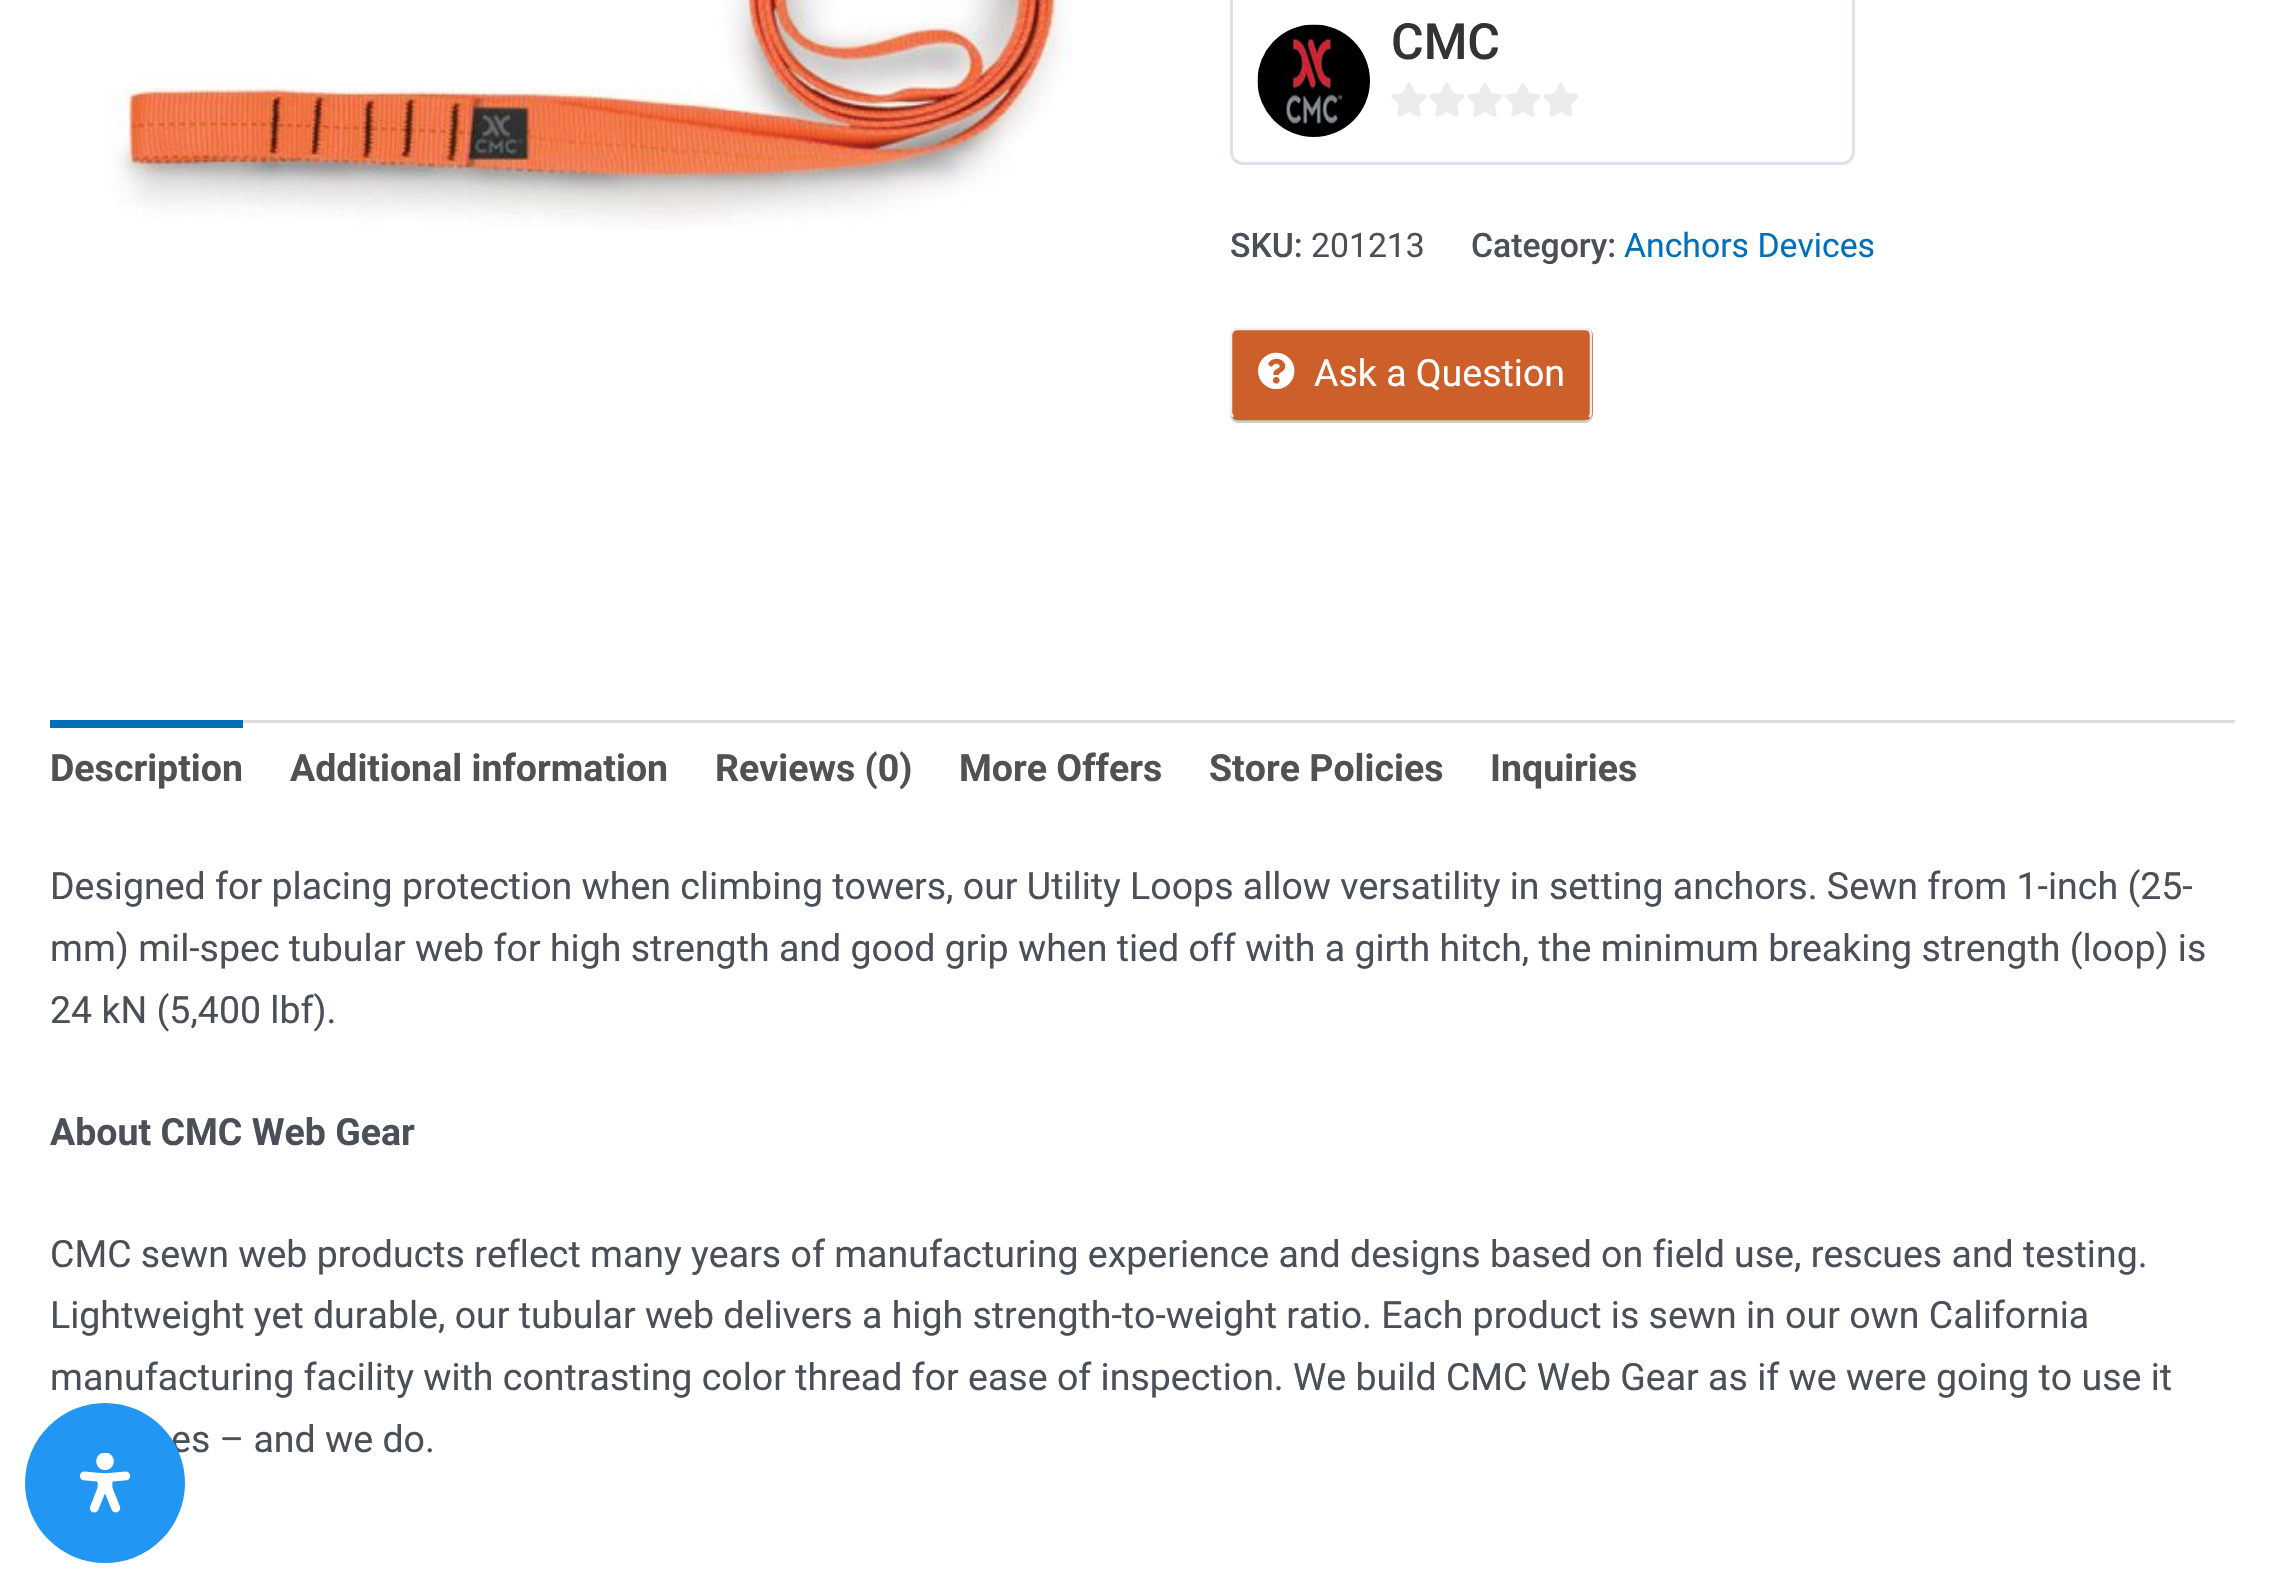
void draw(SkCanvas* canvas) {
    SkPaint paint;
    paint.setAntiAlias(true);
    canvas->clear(0xFFFFFFFF);
    canvas->drawImageRect(SkImages::DeferredFromEncodedData(SkData::MakeFromFileName("img1.png")), SkRect::MakeXYWH(108, 0, 964, 229), SkSamplingOptions());
    paint.setStyle(SkPaint::kStroke_Style);
    paint.setStrokeWidth(3);
    paint.setColor(0xFFDAE2ED);
    canvas->drawRoundRect(SkRect::MakeXYWH(1231.5f, -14.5f, 622, 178), 11.5f, 11.5f, paint);
    canvas->drawImageRect(SkImages::DeferredFromEncodedData(SkData::MakeFromFileName("img2.png")), SkRect::MakeXYWH(1257, 24, 113, 113), SkSamplingOptions());
    SkFont font1(fontMgr->matchFamilyStyle("Roboto", SkFontStyle(500, SkFontStyle::kNormal_Width, SkFontStyle::kUpright_Slant)), 50);
    font1.setSubpixel(true);
    paint.setStyle(SkPaint::kFill_Style);
    paint.setColor(0xFF333333);
    canvas->drawString("CMC", 1391, 59, font1, paint);
    canvas->drawImageRect(SkImages::DeferredFromEncodedData(SkData::MakeFromFileName("img3.png")), SkRect::MakeXYWH(1391, 83, 188, 34), SkSamplingOptions());
    SkFont font2(fontMgr->matchFamilyStyle("Roboto", SkFontStyle(500, SkFontStyle::kNormal_Width, SkFontStyle::kUpright_Slant)), 33.75f);
    font2.setSubpixel(true);
    paint.setColor(0xFF4B4F58);
    canvas->drawString("SKU:", 1230, 257, font2, paint);
    SkFont font3(fontMgr->matchFamilyStyle("Roboto", SkFontStyle::Normal()), 33.75f);
    font3.setSubpixel(true);
    canvas->drawString("201213", 1311, 257, font3, paint);
    canvas->drawString("Category:", 1471, 257, font2, paint);
    paint.setColor(0xFF0170B9);
    canvas->drawString("Anchors Devices", 1624, 257, font3, paint);
    paint.setColor(0xFFCCCCCC);
    canvas->drawPath(SkPathBuilder().moveTo(1230, 412).lineTo(1230, 415).cubicTo(1230, 419, 1234, 423, 1238, 423).lineTo(1585, 423).cubicTo(1589, 423, 1593, 419, 1593, 415).lineTo(1593, 338).lineTo(1592, 335).lineTo(1592, 412).cubicTo(1592, 417, 1589, 420, 1585, 420).lineTo(1238, 420).cubicTo(1233, 420, 1230, 417, 1230, 412).close().detach(), paint);
    paint.setColor(0xFFCC5F2A);
    canvas->drawRoundRect(SkRect::MakeXYWH(1230, 328, 363, 92), 8, 8, paint);
    paint.setStyle(SkPaint::kStroke_Style);
    paint.setStrokeWidth(2.5f);
    canvas->drawPath(SkPathBuilder().moveTo(1589.5f, 417).cubicTo(1588, 418, 1586.5f, 419, 1585, 419).lineTo(1237.5f, 419).cubicTo(1236, 419, 1234.5f, 418, 1233, 417).detach(), paint);
    paint.setColor(0xFFF0F0F0);
    canvas->drawPath(SkPathBuilder().moveTo(1233, 417).cubicTo(1232, 415.5f, 1231, 414, 1231, 412.5f).lineTo(1231, 335).cubicTo(1231, 333.5f, 1232, 332, 1233, 330.5f).cubicTo(1234.5f, 329.5f, 1236, 329, 1237.5f, 329).lineTo(1585, 329).cubicTo(1586.5f, 329, 1588, 329.5f, 1589.5f, 330.5f).cubicTo(1590.5f, 332, 1591, 333.5f, 1591, 335).lineTo(1591, 412.5f).cubicTo(1591, 414, 1590.5f, 415.5f, 1589.5f, 417).detach(), paint);
    canvas->drawImageRect(SkImages::DeferredFromEncodedData(SkData::MakeFromFileName("img4.png")), SkRect::MakeXYWH(1258, 352, 37, 38), SkSamplingOptions());
    SkFont font4(fontMgr->matchFamilyStyle("Roboto", SkFontStyle::Normal()), 37.5f);
    font4.setSubpixel(true);
    paint.setStyle(SkPaint::kFill_Style);
    paint.setColor(0xFFFFFFFF);
    canvas->drawString("Ask a Question", 1314, 386, font4, paint);
    paint.setColor(0xFFDDDDDD);
    canvas->drawRect(SkRect::MakeXYWH(243, 720, 1992, 3), paint);
    paint.setColor(0xFF0170B9);
    canvas->drawRect(SkRect::MakeXYWH(50, 720, 193, 8), paint);
    SkFont font5(fontMgr->matchFamilyStyle("Roboto", SkFontStyle::Bold()), 37.5f);
    font5.setSubpixel(true);
    paint.setColor(0xFF515151);
    canvas->drawString("Description", 50, 781, font5, paint);
    canvas->drawString("Additional information", 290, 781, font5, paint);
    canvas->drawString("Reviews (0)", 715, 781, font5, paint);
    canvas->drawString("More Offers", 959, 781, font5, paint);
    canvas->drawString("Store Policies", 1209, 781, font5, paint);
    canvas->drawString("Inquiries", 1490, 781, font5, paint);
    paint.setColor(0xFF4B4F58);
    canvas->drawString("Designed for placing protection when climbing towers, our Utility Loops allow versatility in setting anchors. Sewn from 1-inch (25-", 50, 899, font4, paint);
    canvas->drawString("mm) mil-spec tubular web for high strength and good grip when tied off with a girth hitch, the minimum breaking strength (loop) is", 50, 961, font4, paint);
    canvas->drawString("24 kN (5,400 lbf).", 50, 1023, font4, paint);
    canvas->drawString("About CMC Web Gear", 50, 1145, font5, paint);
    canvas->drawString("CMC sewn web products reflect many years of manufacturing experience and designs based on field use, rescues and testing.", 50, 1267, font4, paint);
    canvas->drawString("Lightweight yet durable, our tubular web delivers a high strength-to-weight ratio. Each product is sewn in our own California", 50, 1328, font4, paint);
    canvas->drawString("manufacturing facility with contrasting color thread for ease of inspection. We build CMC Web Gear as if we were going to use it", 50, 1390, font4, paint);
    canvas->drawString("es – and we do.", 171, 1452, font4, paint);
    paint.setColor(0xFF2196F3);
    canvas->drawCircle(105, 1483, 80, paint);
    canvas->drawImageRect(SkImages::DeferredFromEncodedData(SkData::MakeFromFileName("img5.png")), SkRect::MakeXYWH(79, 1453, 52, 60), SkSamplingOptions());
}
